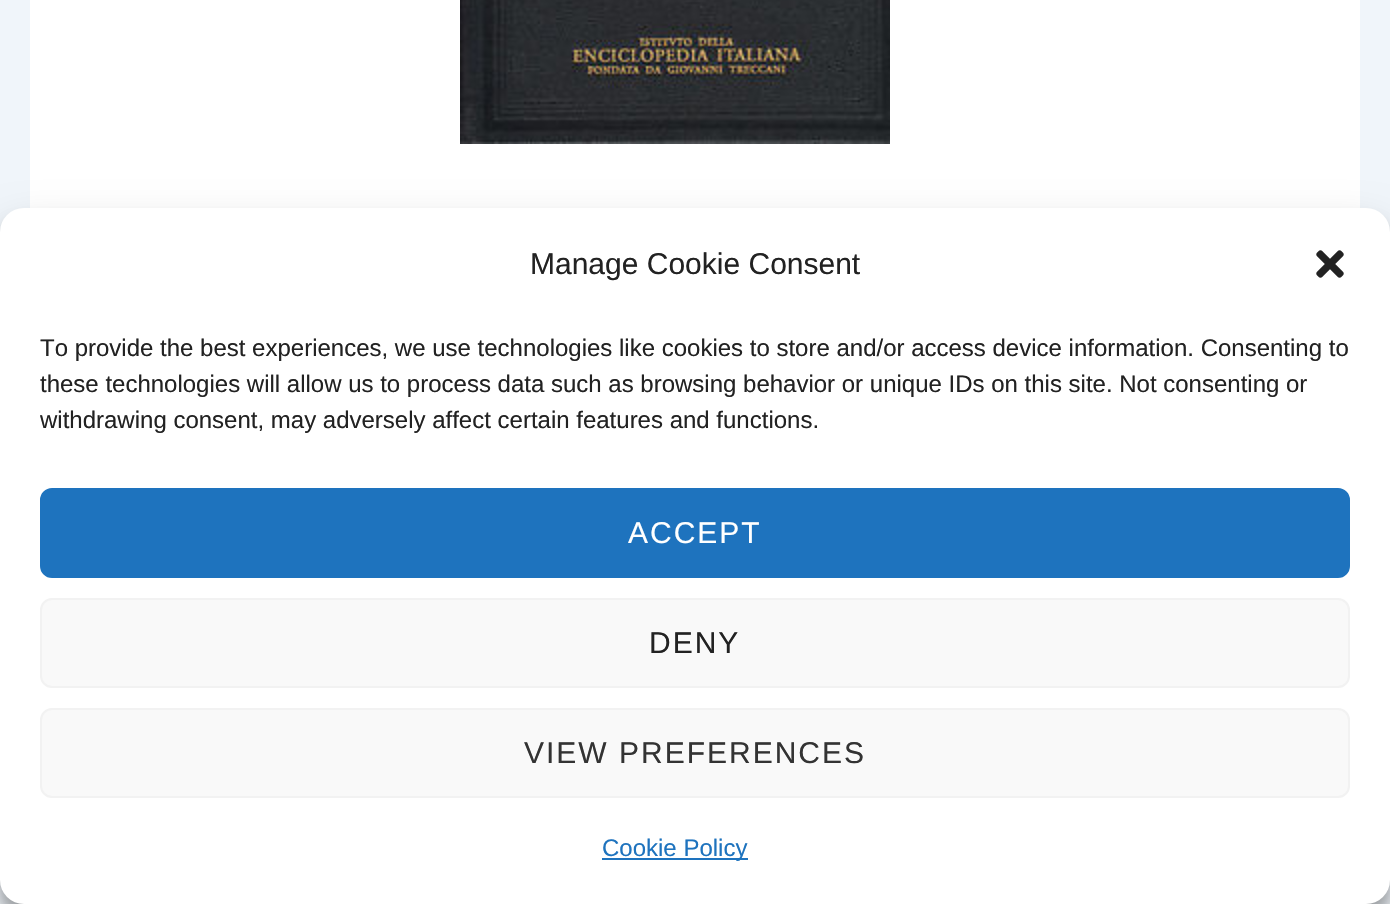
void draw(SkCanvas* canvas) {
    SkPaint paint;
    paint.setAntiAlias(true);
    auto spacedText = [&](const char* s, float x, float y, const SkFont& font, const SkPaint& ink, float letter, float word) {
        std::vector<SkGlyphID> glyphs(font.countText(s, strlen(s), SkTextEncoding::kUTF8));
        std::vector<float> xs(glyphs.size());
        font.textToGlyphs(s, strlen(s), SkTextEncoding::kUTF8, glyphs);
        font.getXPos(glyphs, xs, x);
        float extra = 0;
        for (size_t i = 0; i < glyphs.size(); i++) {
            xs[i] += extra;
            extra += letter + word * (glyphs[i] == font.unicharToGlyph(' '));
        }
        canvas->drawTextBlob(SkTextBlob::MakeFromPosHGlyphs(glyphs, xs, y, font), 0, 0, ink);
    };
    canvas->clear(0xFFF0F5FA);
    paint.setColor(0xFFFFFFFF);
    canvas->drawRect(SkRect::MakeXYWH(30, 0, 1330, 208), paint);
    canvas->drawImageRect(SkImages::DeferredFromEncodedData(SkData::MakeFromFileName("img1.png")), SkRect::MakeXYWH(460, 0, 430, 144), SkSamplingOptions());
    paint.setColor(0x3B000000);
    paint.setMaskFilter(SkMaskFilter::MakeBlur(kNormal_SkBlurStyle, 6));
    canvas->drawRoundRect(SkRect::MakeXYWH(0, 220, 1390, 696), 24, 24, paint);
    paint.setMaskFilter(nullptr);
    paint.setColor(0x30000000);
    paint.setMaskFilter(SkMaskFilter::MakeBlur(kNormal_SkBlurStyle, 20));
    canvas->drawRoundRect(SkRect::MakeXYWH(0, 228, 1390, 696), 24, 24, paint);
    paint.setMaskFilter(nullptr);
    paint.setColor(0xFFFFFFFF);
    canvas->drawRoundRect(SkRect::MakeXYWH(0, 208, 1390, 696), 24, 24, paint);
    SkFont font1(fontMgr->matchFamilyStyle("Liberation Sans", SkFontStyle::Normal()), 30);
    font1.setSubpixel(true);
    paint.setColor(0xFF222222);
    canvas->drawString("Manage Cookie Consent", 530, 274, font1, paint);
    canvas->drawImageRect(SkImages::DeferredFromEncodedData(SkData::MakeFromFileName("img2.png")), SkRect::MakeXYWH(1316, 250, 28, 28), SkSamplingOptions());
    SkFont font2(fontMgr->matchFamilyStyle("Liberation Sans", SkFontStyle::Normal()), 24);
    font2.setSubpixel(true);
    canvas->drawString("To provide the best experiences, we use technologies like cookies to store and/or access device information. Consenting to", 40, 356, font2, paint);
    canvas->drawString("these technologies will allow us to process data such as browsing behavior or unique IDs on this site. Not consenting or", 40, 392, font2, paint);
    canvas->drawString("withdrawing consent, may adversely affect certain features and functions.", 40, 428, font2, paint);
    paint.setColor(0xFF1E73BE);
    canvas->drawRoundRect(SkRect::MakeXYWH(41, 489, 1308, 88), 11, 11, paint);
    paint.setStyle(SkPaint::kStroke_Style);
    paint.setStrokeWidth(2);
    canvas->drawRoundRect(SkRect::MakeXYWH(41, 489, 1308, 88), 11, 11, paint);
    paint.setStyle(SkPaint::kFill_Style);
    paint.setColor(0xFFFFFFFF);
    spacedText("ACCEPT", 628, 543, font1, paint, 2, 0);
    paint.setColor(0xFFF9F9F9);
    canvas->drawRoundRect(SkRect::MakeXYWH(41, 599, 1308, 88), 11, 11, paint);
    paint.setStyle(SkPaint::kStroke_Style);
    paint.setColor(0xFFF2F2F2);
    canvas->drawRoundRect(SkRect::MakeXYWH(41, 599, 1308, 88), 11, 11, paint);
    paint.setStyle(SkPaint::kFill_Style);
    paint.setColor(0xFF222222);
    spacedText("DENY", 649, 653, font1, paint, 2, 0);
    paint.setColor(0xFFF9F9F9);
    canvas->drawRoundRect(SkRect::MakeXYWH(41, 709, 1308, 88), 11, 11, paint);
    paint.setStyle(SkPaint::kStroke_Style);
    paint.setColor(0xFFF2F2F2);
    canvas->drawRoundRect(SkRect::MakeXYWH(41, 709, 1308, 88), 11, 11, paint);
    paint.setStyle(SkPaint::kFill_Style);
    paint.setColor(0xFF333333);
    spacedText("VIEW PREFERENCES", 524, 763, font1, paint, 2, 0);
    paint.setColor(0xFF1E73BE);
    canvas->drawRect(SkRect::MakeXYWH(602, 858, 146, 2), paint);
    canvas->drawString("Cookie Policy", 602, 856, font2, paint);
}
